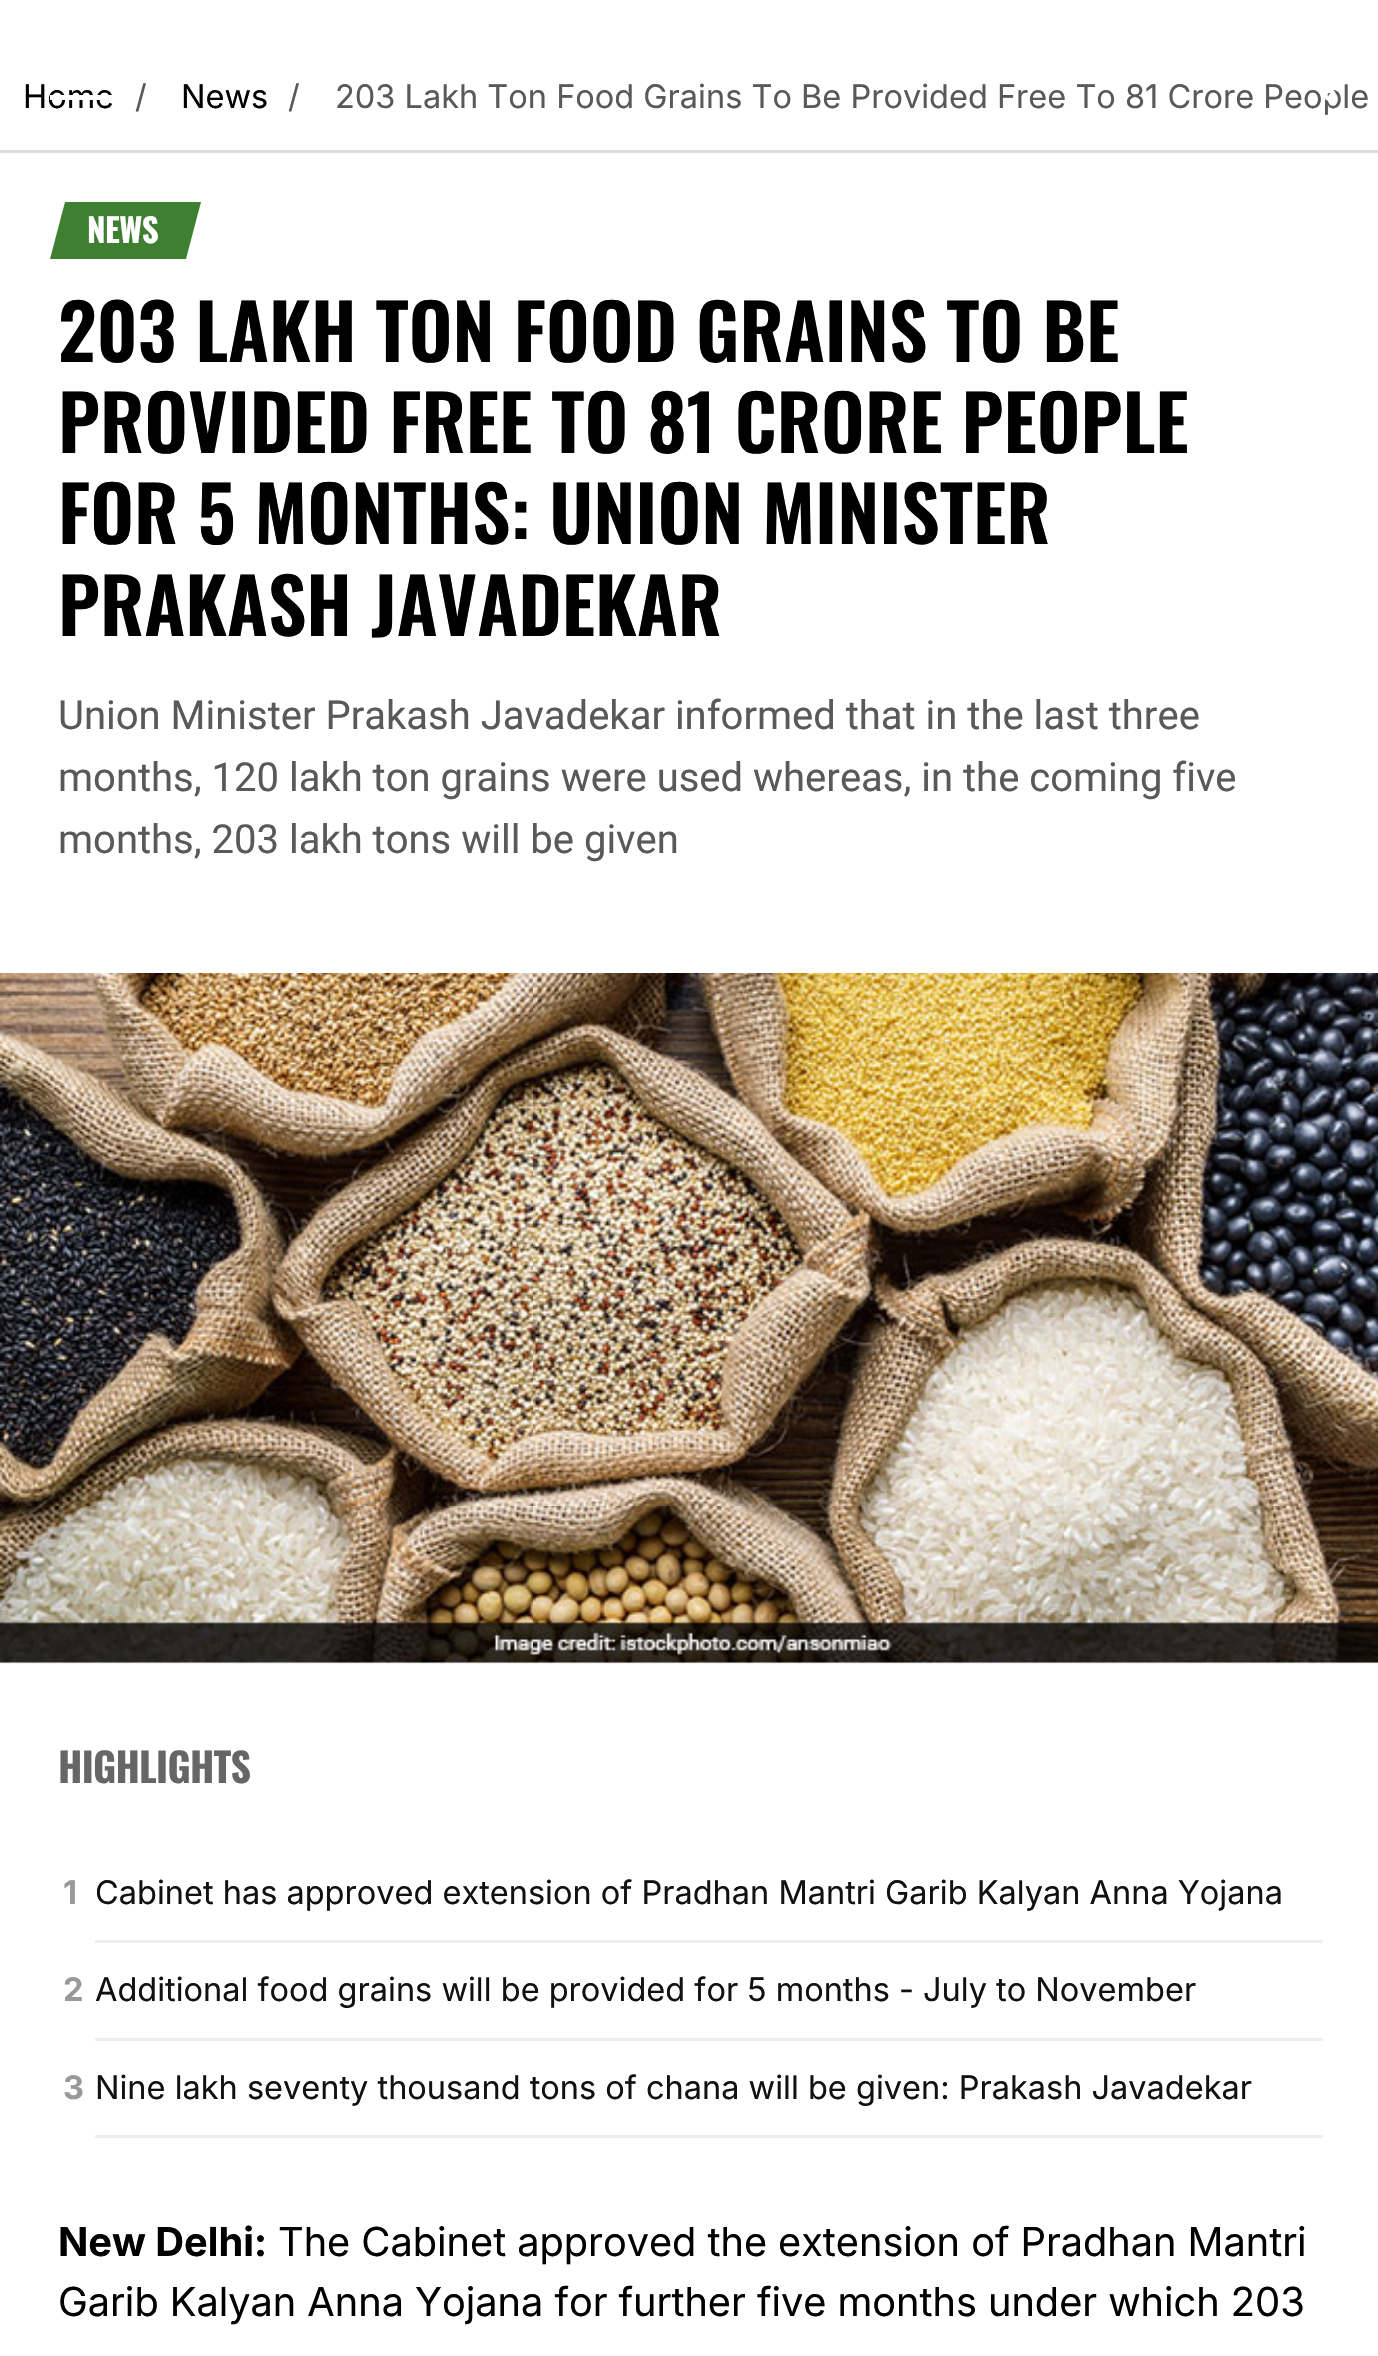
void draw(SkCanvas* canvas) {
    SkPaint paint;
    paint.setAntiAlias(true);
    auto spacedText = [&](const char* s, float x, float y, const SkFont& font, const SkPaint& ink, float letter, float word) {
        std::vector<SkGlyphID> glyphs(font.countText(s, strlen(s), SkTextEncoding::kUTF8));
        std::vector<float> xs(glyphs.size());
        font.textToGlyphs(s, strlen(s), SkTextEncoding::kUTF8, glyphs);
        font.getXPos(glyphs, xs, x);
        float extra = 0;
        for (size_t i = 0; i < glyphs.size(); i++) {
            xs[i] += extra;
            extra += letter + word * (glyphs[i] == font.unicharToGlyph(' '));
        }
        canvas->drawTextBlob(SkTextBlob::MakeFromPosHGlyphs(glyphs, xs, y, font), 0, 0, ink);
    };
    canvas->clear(0xFFFFFFFF);
    paint.setColor(0xFFDDDDDD);
    canvas->drawRect(SkRect::MakeXYWH(0, 150, 1378, 3), paint);
    SkFont font1(fontMgr->matchFamilyStyle("Inter", SkFontStyle::Normal()), 32.5f);
    font1.setSubpixel(true);
    paint.setColor(0xFF000000);
    canvas->drawString("Home", 23, 108, font1, paint);
    paint.setColor(0xFF595959);
    canvas->drawString("/", 135, 108, font1, paint);
    paint.setColor(0xFF000000);
    canvas->drawString("News", 181, 108, font1, paint);
    paint.setColor(0xFF595959);
    canvas->drawString("/", 288, 108, font1, paint);
    canvas->drawString("203 Lakh Ton Food Grains To Be Provided Free To 81 Crore People", 335, 108, font1, paint);
    paint.setColor(0xFF3F7F32);
    canvas->drawPath(SkPathBuilder().moveTo(65, 202).lineTo(201, 202).lineTo(186, 259).lineTo(50, 259).close().detach(), paint);
    SkFont font2(fontMgr->matchFamilyStyle("Oswald", SkFontStyle::Bold()), 33);
    font2.setSubpixel(true);
    paint.setColor(0xFFFFFFFF);
    spacedText("NEWS", 87, 243, font2, paint, -0.5f, 0);
    SkFont font3(fontMgr->matchFamilyStyle("Oswald", SkFontStyle(600, SkFontStyle::kNormal_Width, SkFontStyle::kUpright_Slant)), 76);
    font3.setSubpixel(true);
    paint.setColor(0xFF000000);
    canvas->drawString("203 LAKH TON FOOD GRAINS TO BE", 58, 362, font3, paint);
    canvas->drawString("PROVIDED FREE TO 81 CRORE PEOPLE", 58, 453, font3, paint);
    canvas->drawString("FOR 5 MONTHS: UNION MINISTER", 58, 544, font3, paint);
    canvas->drawString("PRAKASH JAVADEKAR", 58, 636, font3, paint);
    SkFont font4(fontMgr->matchFamilyStyle("Roboto", SkFontStyle::Normal()), 40);
    font4.setSubpixel(true);
    paint.setColor(0xFF595959);
    canvas->drawString("Union Minister Prakash Javadekar informed that in the last three", 58, 729, font4, paint);
    canvas->drawString("months, 120 lakh ton grains were used whereas, in the coming five", 58, 791, font4, paint);
    canvas->drawString("months, 203 lakh tons will be given", 58, 853, font4, paint);
    canvas->drawImageRect(SkImages::DeferredFromEncodedData(SkData::MakeFromFileName("img1.png")), SkRect::MakeXYWH(0, 973, 1378, 691), SkSamplingOptions());
    SkFont font5(fontMgr->matchFamilyStyle("Oswald", SkFontStyle::Bold()), 40);
    font5.setSubpixel(true);
    paint.setColor(0xFF666666);
    spacedText("HIGHLIGHTS", 58, 1783, font5, paint, -0.75f, 0);
    paint.setColor(0xFFEEEEEE);
    canvas->drawRect(SkRect::MakeXYWH(95, 1940, 1228, 3), paint);
    SkFont font6(fontMgr->matchFamilyStyle("Inter", SkFontStyle::Bold()), 32.5f);
    font6.setSubpixel(true);
    paint.setColor(0xFF999999);
    canvas->drawString("1", 63, 1904, font6, paint);
    paint.setColor(0xFF111111);
    canvas->drawString("Cabinet has approved extension of Pradhan Mantri Garib Kalyan Anna Yojana", 95, 1904, font1, paint);
    paint.setColor(0xFFEEEEEE);
    canvas->drawRect(SkRect::MakeXYWH(95, 2038, 1228, 3), paint);
    paint.setColor(0xFF999999);
    canvas->drawString("2", 63, 2001, font6, paint);
    paint.setColor(0xFF111111);
    canvas->drawString("Additional food grains will be provided for 5 months - July to November", 95, 2001, font1, paint);
    paint.setColor(0xFFEEEEEE);
    canvas->drawRect(SkRect::MakeXYWH(95, 2135, 1228, 3), paint);
    paint.setColor(0xFF999999);
    canvas->drawString("3", 63, 2099, font6, paint);
    paint.setColor(0xFF111111);
    canvas->drawString("Nine lakh seventy thousand tons of chana will be given: Prakash Javadekar", 95, 2099, font1, paint);
    SkFont font7(fontMgr->matchFamilyStyle("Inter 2", SkFontStyle::Bold()), 40);
    font7.setSubpixel(true);
    paint.setColor(0xFF000000);
    canvas->drawString("New Delhi:", 58, 2256, font7, paint);
    SkFont font8(fontMgr->matchFamilyStyle("Inter 2", SkFontStyle::Normal()), 40);
    font8.setSubpixel(true);
    canvas->drawString("The Cabinet approved the extension of Pradhan Mantri", 278, 2256, font8, paint);
    canvas->drawString("Garib Kalyan Anna Yojana for further five months under which 203", 58, 2316, font8, paint);
    paint.setColor(0xFFFFFFFF);
    canvas->drawRect(SkRect::MakeXYWH(50, 95, 63, 5), paint);
    canvas->drawImageRect(SkImages::DeferredFromEncodedData(SkData::MakeFromFileName("img2.png")), SkRect::MakeXYWH(1325, 90, 11, 11), SkSamplingOptions());
}
